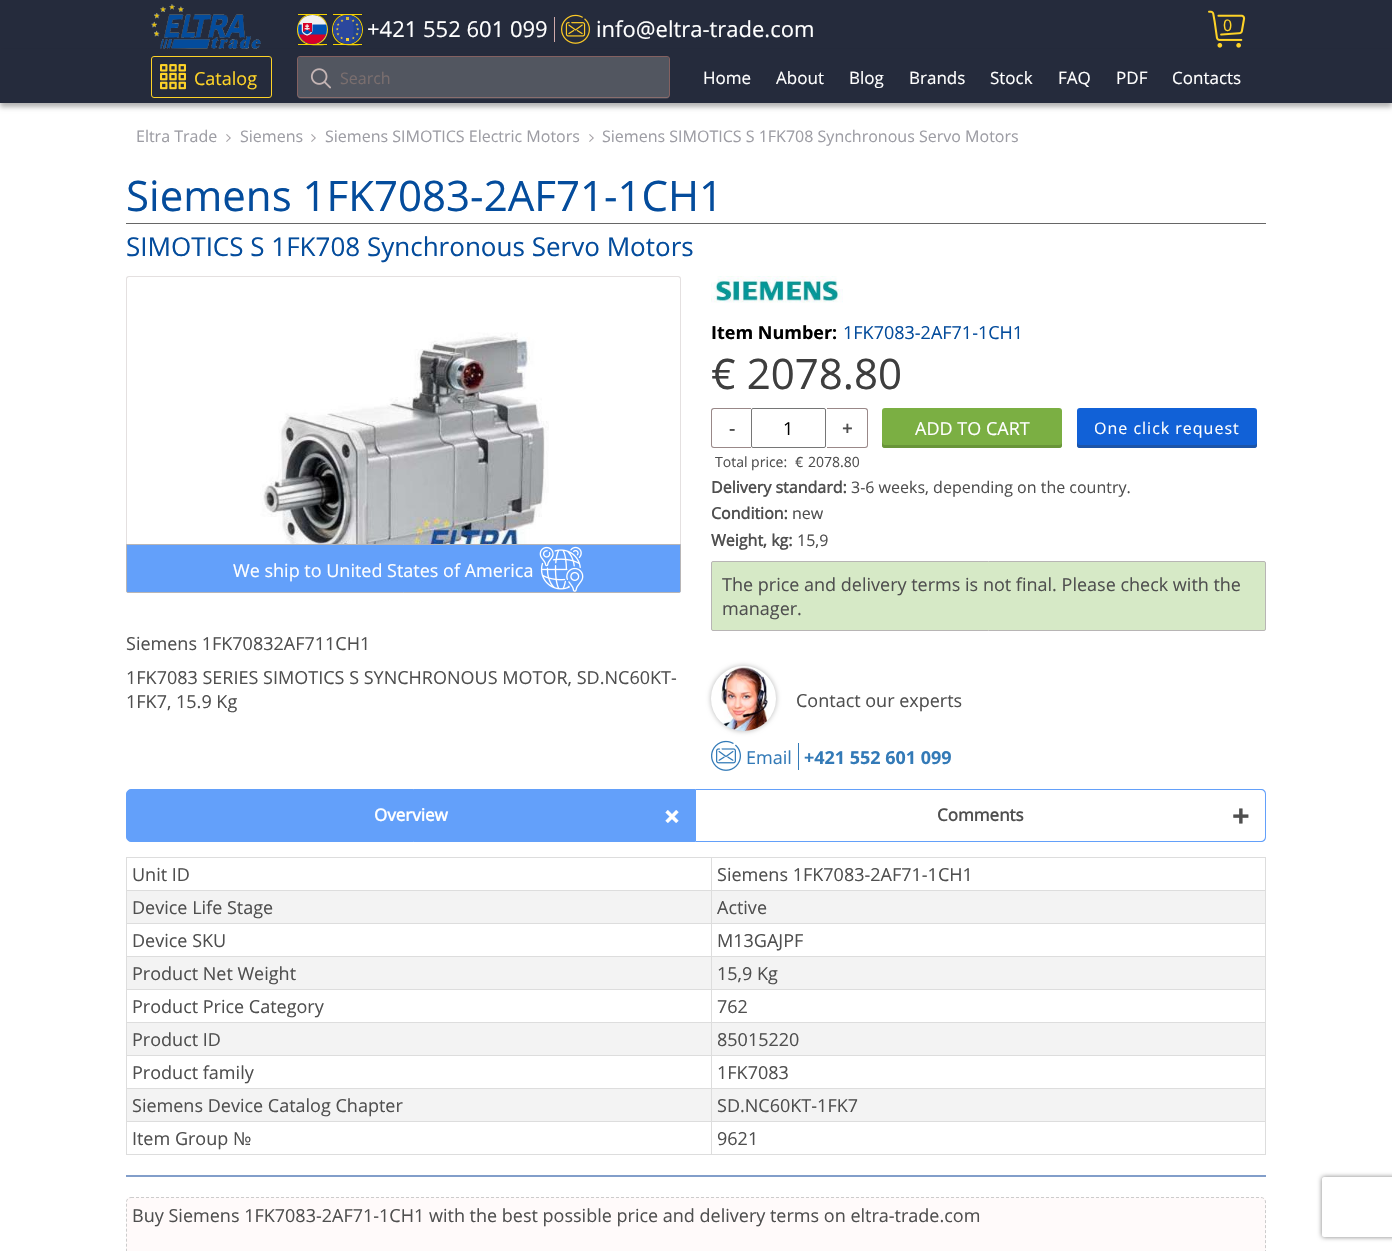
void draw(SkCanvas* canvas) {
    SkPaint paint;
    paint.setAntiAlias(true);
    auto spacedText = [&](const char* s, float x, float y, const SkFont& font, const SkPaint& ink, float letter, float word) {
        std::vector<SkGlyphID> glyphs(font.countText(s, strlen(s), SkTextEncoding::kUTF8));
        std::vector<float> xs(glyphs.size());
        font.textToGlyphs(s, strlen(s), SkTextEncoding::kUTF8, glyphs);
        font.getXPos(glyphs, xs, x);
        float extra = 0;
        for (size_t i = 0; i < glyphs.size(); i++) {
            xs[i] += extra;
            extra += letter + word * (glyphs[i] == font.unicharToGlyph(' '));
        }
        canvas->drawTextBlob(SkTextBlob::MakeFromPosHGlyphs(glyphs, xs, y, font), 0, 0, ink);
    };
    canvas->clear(0xFFFFFFFF);
    paint.setColor(0xFF252B3C);
    canvas->drawRect(SkRect::MakeXYWH(0, 0, 1392, 49), paint);
    canvas->drawImageRect(SkImages::DeferredFromEncodedData(SkData::MakeFromFileName("img1.png")), SkRect::MakeXYWH(151, 4, 110, 45), SkSamplingOptions());
    paint.setColor(0xFFF6D200);
    canvas->drawPath(SkPathBuilder(SkPathFillType::kEvenOdd).moveTo(347, 14).lineTo(362, 14).lineTo(362, 45).cubicTo(356.5f, 45, 346, 46, 341, 44).cubicTo(326.5f, 37.5f, 330.5f, 14, 347, 14).close().moveTo(347, 15).lineTo(362, 15).lineTo(362, 44).cubicTo(356.5f, 44, 346, 45, 341.5f, 43).cubicTo(328, 37, 331.5f, 15, 347, 15).close().detach(), paint);
    canvas->drawRect(SkRect::MakeXYWH(348, 44, 14, 1), paint);
    canvas->drawPath(SkPathBuilder(SkPathFillType::kEvenOdd).moveTo(333, 14).lineTo(348, 14).cubicTo(356.5f, 14, 363, 21, 363, 29.5f).cubicTo(363, 38, 356.5f, 45, 348, 45).lineTo(333, 45).close().moveTo(333, 15).lineTo(348, 15).cubicTo(355.5f, 15, 362, 21.5f, 362, 29.5f).cubicTo(362, 37.5f, 355.5f, 44, 348, 44).lineTo(333, 44).close().detach(), paint);
    paint.setColor(0xFF214391);
    canvas->drawPath(SkPathBuilder().moveTo(347.5f, 15).lineTo(347.5f, 44).cubicTo(366.5f, 44, 366.5f, 15, 347.5f, 15).close().detach(), paint);
    paint.setColor(0xFF2B479D);
    canvas->drawPath(SkPathBuilder().moveTo(347.5f, 15).cubicTo(333, 15, 327.5f, 34, 340, 41.5f).cubicTo(342, 43, 345, 44, 347.5f, 44).cubicTo(355.5f, 43.5f, 355.5f, 15, 347.5f, 15).close().detach(), paint);
    canvas->drawImageRect(SkImages::DeferredFromEncodedData(SkData::MakeFromFileName("img2.png")), SkRect::MakeXYWH(340, 19, 4, 3), SkSamplingOptions());
    canvas->drawImageRect(SkImages::DeferredFromEncodedData(SkData::MakeFromFileName("img3.png")), SkRect::MakeXYWH(351, 19, 4, 3), SkSamplingOptions());
    paint.setColor(0xFFD0AAAA);
    canvas->drawRect(SkRect::MakeXYWH(554, 17, 1, 25), paint);
    paint.setColor(0xFFF6D200);
    canvas->drawPath(SkPathBuilder(SkPathFillType::kEvenOdd).moveTo(312, 14).lineTo(327, 14).lineTo(327, 45).cubicTo(321.5f, 45, 311, 46, 306, 44).cubicTo(291.5f, 37.5f, 295.5f, 14, 312, 14).close().moveTo(312, 15).lineTo(327, 15).lineTo(327, 44).cubicTo(321.5f, 44, 311, 45, 306.5f, 43).cubicTo(293, 37, 296.5f, 15, 312, 15).close().detach(), paint);
    canvas->drawRect(SkRect::MakeXYWH(313, 44, 14, 1), paint);
    canvas->drawPath(SkPathBuilder(SkPathFillType::kEvenOdd).moveTo(298, 14).lineTo(313, 14).cubicTo(321.5f, 14, 328, 21, 328, 29.5f).cubicTo(328, 38, 321.5f, 45, 313, 45).lineTo(298, 45).close().moveTo(298, 15).lineTo(313, 15).cubicTo(320.5f, 15, 327, 21.5f, 327, 29.5f).cubicTo(327, 37.5f, 320.5f, 44, 313, 44).lineTo(298, 44).close().detach(), paint);
    paint.setColor(0xFFF0F0F0);
    canvas->drawPath(SkPathBuilder().moveTo(327, 29.5f).cubicTo(327, 48.5f, 298, 48.5f, 298, 29.5f).cubicTo(298, 10, 327, 10, 327, 29.5f).close().detach(), paint);
    paint.setColor(0xFF0052B4);
    canvas->drawPath(SkPathBuilder().moveTo(312.5f, 44).cubicTo(322.5f, 44, 329.5f, 33.5f, 326, 24.5f).lineTo(299, 24.5f).cubicTo(295.5f, 33.5f, 302.5f, 44, 312.5f, 44).close().detach(), paint);
    paint.setColor(0xFFD80027);
    canvas->drawPath(SkPathBuilder().moveTo(312.5f, 44).cubicTo(318.5f, 44, 324, 40, 326, 34.5f).lineTo(299, 34.5f).cubicTo(301, 40, 306.5f, 44, 312.5f, 44).close().detach(), paint);
    canvas->drawImageRect(SkImages::DeferredFromEncodedData(SkData::MakeFromFileName("img4.png")), SkRect::MakeXYWH(301, 24, 12, 12), SkSamplingOptions());
    canvas->drawImageRect(SkImages::DeferredFromEncodedData(SkData::MakeFromFileName("img5.png")), SkRect::MakeXYWH(336, 23, 4, 3), SkSamplingOptions());
    canvas->drawImageRect(SkImages::DeferredFromEncodedData(SkData::MakeFromFileName("img6.png")), SkRect::MakeXYWH(355, 23, 4, 3), SkSamplingOptions());
    SkFont font1(fontMgr->matchFamilyStyle("Open Sans", SkFontStyle::Normal()), 22);
    font1.setSubpixel(true);
    paint.setColor(0xFFFFFFFF);
    canvas->drawString("+421 552 601 099", 367, 37, font1, paint);
    paint.setColor(0xFFD80027);
    canvas->drawRect(SkRect::MakeXYWH(303, 23, 9, 9), paint);
    paint.setColor(0xFFD5BA41);
    canvas->drawRect(SkRect::MakeXYWH(346, 17, 3, 3), paint);
    paint.setColor(0xFFF8D12E);
    canvas->drawRect(SkRect::MakeXYWH(346, 38, 3, 3), paint);
    canvas->drawImageRect(SkImages::DeferredFromEncodedData(SkData::MakeFromFileName("img7.png")), SkRect::MakeXYWH(304, 24, 6, 7), SkSamplingOptions());
    canvas->drawImageRect(SkImages::DeferredFromEncodedData(SkData::MakeFromFileName("img8.png")), SkRect::MakeXYWH(335, 27, 4, 4), SkSamplingOptions());
    canvas->drawImageRect(SkImages::DeferredFromEncodedData(SkData::MakeFromFileName("img9.png")), SkRect::MakeXYWH(356, 27, 4, 4), SkSamplingOptions());
    canvas->drawImageRect(SkImages::DeferredFromEncodedData(SkData::MakeFromFileName("img10.png")), SkRect::MakeXYWH(303, 29, 8, 6), SkSamplingOptions());
    canvas->drawImageRect(SkImages::DeferredFromEncodedData(SkData::MakeFromFileName("img11.png")), SkRect::MakeXYWH(336, 32, 4, 4), SkSamplingOptions());
    canvas->drawImageRect(SkImages::DeferredFromEncodedData(SkData::MakeFromFileName("img12.png")), SkRect::MakeXYWH(355, 32, 4, 4), SkSamplingOptions());
    canvas->drawImageRect(SkImages::DeferredFromEncodedData(SkData::MakeFromFileName("img13.png")), SkRect::MakeXYWH(340, 36, 3, 4), SkSamplingOptions());
    canvas->drawImageRect(SkImages::DeferredFromEncodedData(SkData::MakeFromFileName("img14.png")), SkRect::MakeXYWH(352, 36, 3, 4), SkSamplingOptions());
    canvas->drawImageRect(SkImages::DeferredFromEncodedData(SkData::MakeFromFileName("img15.png")), SkRect::MakeXYWH(561, 14, 29, 30), SkSamplingOptions());
    paint.setColor(0xFFFFFFFF);
    canvas->drawString("info@eltra-trade.com", 596, 37, font1, paint);
    canvas->drawImageRect(SkImages::DeferredFromEncodedData(SkData::MakeFromFileName("img16.png")), SkRect::MakeXYWH(1208, 10, 38, 38), SkSamplingOptions());
    SkFont font2(fontMgr->matchFamilyStyle("Open Sans", SkFontStyle::Normal()), 16);
    font2.setSubpixel(true);
    paint.setColor(0xFFFED327);
    canvas->drawString("0", 1223, 31, font2, paint);
    paint.setColor(0x4D000000);
    paint.setMaskFilter(SkMaskFilter::MakeBlur(kNormal_SkBlurStyle, 2.5f));
    canvas->drawRect(SkRect::MakeXYWH(0, 53, 1392, 54), paint);
    paint.setMaskFilter(nullptr);
    paint.setColor(0xFF252B3C);
    canvas->drawRect(SkRect::MakeXYWH(0, 49, 1392, 54), paint);
    paint.setStyle(SkPaint::kStroke_Style);
    paint.setStrokeWidth(1);
    paint.setColor(0xFFFED327);
    canvas->drawRoundRect(SkRect::MakeXYWH(151.5f, 56.5f, 120, 41), 2.5f, 2.5f, paint);
    canvas->drawImageRect(SkImages::DeferredFromEncodedData(SkData::MakeFromFileName("img17.png")), SkRect::MakeXYWH(160, 64, 26, 26), SkSamplingOptions());
    SkFont font3(fontMgr->matchFamilyStyle("Open Sans", SkFontStyle::Normal()), 18);
    font3.setSubpixel(true);
    paint.setStyle(SkPaint::kFill_Style);
    canvas->drawString("Catalog", 194, 85, font3, paint);
    paint.setColor(0xFF3E4350);
    canvas->drawRoundRect(SkRect::MakeXYWH(297.5f, 56.5f, 372, 41), 2.5f, 2.5f, paint);
    paint.setStyle(SkPaint::kStroke_Style);
    paint.setColor(0xFF846161);
    canvas->drawRoundRect(SkRect::MakeXYWH(297.5f, 56.5f, 372, 41), 2.5f, 2.5f, paint);
    paint.setStyle(SkPaint::kFill_Style);
    paint.setColor(0x33A1A1A1);
    canvas->drawRoundRect(SkRect::MakeXYWH(298, 57, 371, 42), 3, 3, paint);
    canvas->drawImageRect(SkImages::DeferredFromEncodedData(SkData::MakeFromFileName("img18.png")), SkRect::MakeXYWH(310, 68, 21, 21), SkSamplingOptions());
    paint.setColor(0xFF7A6E6E);
    canvas->drawString("Search", 340, 84, font2, paint);
    SkFont font4(fontMgr->matchFamilyStyle("Open Sans", SkFontStyle::Normal()), 17);
    font4.setSubpixel(true);
    paint.setColor(0xFFFFFFFF);
    canvas->drawString("Home", 703, 84, font4, paint);
    canvas->drawString("About", 776, 84, font4, paint);
    canvas->drawString("Blog", 849, 84, font4, paint);
    canvas->drawString("Brands", 909, 84, font4, paint);
    canvas->drawString("Stock", 990, 84, font4, paint);
    canvas->drawString("FAQ", 1058, 84, font4, paint);
    canvas->drawString("PDF", 1116, 84, font4, paint);
    canvas->drawString("Contacts", 1172, 84, font4, paint);
    paint.setColor(0xFF9D9DA4);
    canvas->drawString("Eltra Trade", 136, 142, font2, paint);
    canvas->drawImageRect(SkImages::DeferredFromEncodedData(SkData::MakeFromFileName("img19.png")), SkRect::MakeXYWH(226, 134, 5, 8), SkSamplingOptions());
    canvas->drawString("Siemens", 240, 142, font2, paint);
    canvas->drawImageRect(SkImages::DeferredFromEncodedData(SkData::MakeFromFileName("img19.png")), SkRect::MakeXYWH(311, 134, 5, 8), SkSamplingOptions());
    canvas->drawString("Siemens SIMOTICS Electric Motors", 325, 142, font2, paint);
    canvas->drawImageRect(SkImages::DeferredFromEncodedData(SkData::MakeFromFileName("img19.png")), SkRect::MakeXYWH(589, 134, 5, 8), SkSamplingOptions());
    canvas->drawString("Siemens SIMOTICS S 1FK708 Synchronous Servo Motors", 602, 142, font2, paint);
    paint.setColor(0xFF666666);
    canvas->drawRect(SkRect::MakeXYWH(126, 223, 1140, 1), paint);
    SkFont font5(fontMgr->matchFamilyStyle("Open Sans", SkFontStyle::Normal()), 42);
    font5.setSubpixel(true);
    paint.setColor(0xFF044C9C);
    canvas->drawString("Siemens 1FK7083-2AF71-1CH1", 126, 211, font5, paint);
    SkFont font6(fontMgr->matchFamilyStyle("Open Sans", SkFontStyle::Normal()), 26);
    font6.setSubpixel(true);
    canvas->drawString("SIMOTICS S 1FK708 Synchronous Servo Motors", 126, 256, font6, paint);
    paint.setColor(0xFFE4E0E0);
    canvas->drawPath(SkPathBuilder().moveTo(129, 276).cubicTo(127, 276, 126, 277, 126, 279).lineTo(126, 573).lineTo(127, 574).lineTo(127, 279).cubicTo(127, 278, 128, 277, 129, 277).lineTo(678, 277).cubicTo(679, 277, 680, 278, 680, 279).lineTo(680, 574).lineTo(681, 573).lineTo(681, 279).cubicTo(681, 277, 680, 276, 678, 276).close().detach(), paint);
    canvas->drawImageRect(SkImages::DeferredFromEncodedData(SkData::MakeFromFileName("img20.png")), SkRect::MakeXYWH(260, 332, 289, 212), SkSamplingOptions());
    paint.setColor(0xFF63A0FA);
    canvas->drawPath(SkPathBuilder().moveTo(126.5f, 544.5f).lineTo(680.5f, 544.5f).lineTo(680.5f, 591).cubicTo(680.5f, 592, 680, 592.5f, 679, 592.5f).lineTo(128, 592.5f).cubicTo(127, 592.5f, 126.5f, 592, 126.5f, 591).close().detach(), paint);
    paint.setStyle(SkPaint::kStroke_Style);
    paint.setColor(0xFFB8B5B5);
    canvas->drawPath(SkPathBuilder().moveTo(126.5f, 544.5f).lineTo(680.5f, 544.5f).lineTo(680.5f, 591).cubicTo(680.5f, 592, 680, 592.5f, 679, 592.5f).lineTo(128, 592.5f).cubicTo(127, 592.5f, 126.5f, 592, 126.5f, 591).close().detach(), paint);
    paint.setStyle(SkPaint::kFill_Style);
    paint.setColor(0xFFFFFFFF);
    canvas->drawString("We ship to United States of America", 233, 577, font3, paint);
    canvas->drawImageRect(SkImages::DeferredFromEncodedData(SkData::MakeFromFileName("img21.png")), SkRect::MakeXYWH(539, 546, 45, 46), SkSamplingOptions());
    paint.setColor(0xFF4F4F4F);
    canvas->drawString("Siemens 1FK70832AF711CH1", 126, 650, font3, paint);
    canvas->drawString("1FK7083 SERIES SIMOTICS S SYNCHRONOUS MOTOR, SD.NC60KT-", 126, 684, font3, paint);
    canvas->drawString("1FK7, 15.9 Kg", 126, 708, font3, paint);
    canvas->drawImageRect(SkImages::DeferredFromEncodedData(SkData::MakeFromFileName("img22.png")), SkRect::MakeXYWH(711, 276, 132, 27), SkSamplingOptions());
    SkFont font7(fontMgr->matchFamilyStyle("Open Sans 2", SkFontStyle::Bold()), 18);
    font7.setSubpixel(true);
    paint.setColor(0xFF000000);
    canvas->drawString("Item Number:", 711, 339, font7, paint);
    paint.setColor(0xFF044C9C);
    canvas->drawString("1FK7083-2AF71-1CH1", 843, 339, font3, paint);
    paint.setColor(0xFF3E3E3E);
    canvas->drawString("€ 2078.80", 711, 389, font5, paint);
    paint.setColor(0xFF998888);
    canvas->drawPath(SkPathBuilder(SkPathFillType::kEvenOdd).moveTo(714, 408).lineTo(751, 408).lineTo(751, 448).lineTo(714, 448).cubicTo(712, 448, 711, 447, 711, 445).lineTo(711, 411).cubicTo(711, 409, 712, 408, 714, 408).close().moveTo(714, 409).lineTo(751, 409).lineTo(751, 447).lineTo(714, 447).cubicTo(713, 447, 712, 446, 712, 445).lineTo(712, 411).cubicTo(712, 410, 713, 409, 714, 409).close().detach(), paint);
    SkFont font8(fontMgr->matchFamilyStyle("Open Sans", SkFontStyle::Bold()), 18);
    font8.setSubpixel(true);
    paint.setColor(0xFF4F4F4F);
    canvas->drawString("-", 729, 435, font8, paint);
    paint.setStyle(SkPaint::kStroke_Style);
    paint.setColor(0xFF767676);
    canvas->drawRoundRect(SkRect::MakeXYWH(751.5f, 408.5f, 74, 39), 1.5f, 1.5f, paint);
    paint.setStyle(SkPaint::kFill_Style);
    paint.setColor(0xFF000000);
    canvas->drawString("1", 783, 435, font3, paint);
    paint.setColor(0xFF998888);
    canvas->drawPath(SkPathBuilder(SkPathFillType::kEvenOdd).moveTo(827, 408).lineTo(865, 408).cubicTo(867, 408, 868, 409, 868, 411).lineTo(868, 445).cubicTo(868, 447, 867, 448, 865, 448).lineTo(827, 448).close().moveTo(827, 409).lineTo(865, 409).cubicTo(866, 409, 867, 410, 867, 411).lineTo(867, 445).cubicTo(867, 446, 866, 447, 865, 447).lineTo(827, 447).close().detach(), paint);
    paint.setColor(0xFF4F4F4F);
    canvas->drawString("+", 842, 435, font8, paint);
    SkFont font9(fontMgr->matchFamilyStyle("Open Sans", SkFontStyle::Normal()), 14);
    font9.setSubpixel(true);
    canvas->drawString("Total price:", 715, 467, font9, paint);
    canvas->drawString("€", 795, 467, font9, paint);
    canvas->drawString("2078.80", 808, 467, font9, paint);
    paint.setColor(0xFF7BAF43);
    canvas->drawRoundRect(SkRect::MakeXYWH(882, 408, 180, 40), 3, 3, paint);
    paint.setColor(0xFF699539);
    canvas->drawPath(SkPathBuilder().moveTo(882, 442).lineTo(882, 445).cubicTo(882, 447, 883, 448, 885, 448).lineTo(1059, 448).cubicTo(1061, 448, 1062, 447, 1062, 445).lineTo(1062, 442).cubicTo(1062, 444, 1061, 445, 1059, 445).lineTo(884, 445).lineTo(883, 444).close().detach(), paint);
    paint.setColor(0xFFFFFFFF);
    canvas->drawString("ADD TO CART", 915, 435, font3, paint);
    paint.setColor(0xFF1161D7);
    canvas->drawRoundRect(SkRect::MakeXYWH(1077, 408, 180, 40), 3, 3, paint);
    paint.setColor(0xFF1C54A8);
    canvas->drawPath(SkPathBuilder().moveTo(1077, 442).lineTo(1077, 445).cubicTo(1077, 447, 1078, 448, 1080, 448).lineTo(1254, 448).cubicTo(1256, 448, 1257, 447, 1257, 445).lineTo(1257, 442).cubicTo(1257, 444, 1256, 445, 1254, 445).lineTo(1079, 445).lineTo(1078, 444).close().detach(), paint);
    paint.setColor(0xFFFFFFFF);
    spacedText("One click request", 1094, 434, font2, paint, 1, 0);
    SkFont font10(fontMgr->matchFamilyStyle("Open Sans", SkFontStyle::Bold()), 16);
    font10.setSubpixel(true);
    paint.setColor(0xFF4F4F4F);
    canvas->drawString("Delivery standard:", 711, 493, font10, paint);
    canvas->drawString("3-6 weeks, depending on the country.", 851, 493, font2, paint);
    canvas->drawString("Condition:", 711, 519, font10, paint);
    canvas->drawString("new", 792, 519, font2, paint);
    canvas->drawString("Weight, kg:", 711, 546, font10, paint);
    canvas->drawString("15,9", 797, 546, font2, paint);
    paint.setColor(0xFFD6E9C6);
    canvas->drawRoundRect(SkRect::MakeXYWH(711.5f, 561.5f, 554, 69), 1.5f, 1.5f, paint);
    paint.setStyle(SkPaint::kStroke_Style);
    paint.setColor(0xFFB8B5B5);
    canvas->drawRoundRect(SkRect::MakeXYWH(711.5f, 561.5f, 554, 69), 1.5f, 1.5f, paint);
    paint.setStyle(SkPaint::kFill_Style);
    paint.setColor(0xFF4F4F4F);
    canvas->drawString("The price and delivery terms is not final. Please check with the", 722, 591, font3, paint);
    canvas->drawString("manager.", 722, 615, font3, paint);
    paint.setColor(0xFFCCCCCC);
    paint.setMaskFilter(SkMaskFilter::MakeBlur(kNormal_SkBlurStyle, 2));
    canvas->drawRoundRect(SkRect::MakeXYWH(710, 665, 67, 67), 33.5f, 33.5f, paint);
    paint.setMaskFilter(nullptr);
    canvas->drawImageRect(SkImages::DeferredFromEncodedData(SkData::MakeFromFileName("img23.png")), SkRect::MakeXYWH(711, 666, 65, 65), SkSamplingOptions());
    paint.setColor(0xFF4F4F4F);
    canvas->drawString("Contact our experts", 796, 707, font3, paint);
    canvas->drawImageRect(SkImages::DeferredFromEncodedData(SkData::MakeFromFileName("img24.png")), SkRect::MakeXYWH(711, 740, 30, 31), SkSamplingOptions());
    paint.setColor(0xFF337AB7);
    canvas->drawString("Email", 746, 764, font3, paint);
    canvas->drawRect(SkRect::MakeXYWH(798, 743, 1, 27), paint);
    canvas->drawString("+421 552 601 099", 804, 764, font7, paint);
    paint.setColor(0xFF63A0FA);
    canvas->drawPath(SkPathBuilder().moveTo(131, 789.5f).lineTo(695.5f, 789.5f).lineTo(695.5f, 841.5f).lineTo(131, 841.5f).cubicTo(128.5f, 841.5f, 126.5f, 839.5f, 126.5f, 837).lineTo(126.5f, 794).cubicTo(126.5f, 791.5f, 128.5f, 789.5f, 131, 789.5f).close().detach(), paint);
    paint.setStyle(SkPaint::kStroke_Style);
    canvas->drawPath(SkPathBuilder().moveTo(131, 789.5f).lineTo(695.5f, 789.5f).lineTo(695.5f, 841.5f).lineTo(131, 841.5f).cubicTo(128.5f, 841.5f, 126.5f, 839.5f, 126.5f, 837).lineTo(126.5f, 794).cubicTo(126.5f, 791.5f, 128.5f, 789.5f, 131, 789.5f).close().detach(), paint);
    SkFont font11(fontMgr->matchFamilyStyle("Open Sans", SkFontStyle::Bold()), 17);
    font11.setSubpixel(true);
    paint.setStyle(SkPaint::kFill_Style);
    paint.setColor(0xFFFFFFFF);
    canvas->drawString("Overview", 374, 821, font11, paint);
    SkFont font12(fontMgr->matchFamilyStyle("Open Sans 2", SkFontStyle::Bold()), 31);
    font12.setSubpixel(true);
    canvas->save();
    canvas->rotate(45, 658, 818);
    canvas->drawString("+", 658, 818, font12, paint);
    canvas->restore();
    paint.setColor(0xFF63A0FA);
    canvas->drawPath(SkPathBuilder(SkPathFillType::kEvenOdd).moveTo(696, 789).lineTo(1261, 789).cubicTo(1264, 789, 1266, 791, 1266, 794).lineTo(1266, 837).cubicTo(1266, 840, 1264, 842, 1261, 842).lineTo(696, 842).close().moveTo(696, 790).lineTo(1261, 790).cubicTo(1263, 790, 1265, 792, 1265, 794).lineTo(1265, 837).cubicTo(1265, 839, 1263, 841, 1261, 841).lineTo(696, 841).close().detach(), paint);
    paint.setColor(0xFF4F4F4F);
    canvas->drawString("Comments", 937, 821, font11, paint);
    canvas->drawString("+", 1232, 827, font12, paint);
    paint.setColor(0xFFDDDDDD);
    canvas->drawRect(SkRect::MakeXYWH(711, 857, 555, 1), paint);
    canvas->drawRect(SkRect::MakeXYWH(711, 890, 555, 1), paint);
    paint.setColor(0xFFF3F3F3);
    canvas->drawRect(SkRect::MakeXYWH(127, 891, 1138, 32), paint);
    paint.setColor(0xFFDDDDDD);
    canvas->drawRect(SkRect::MakeXYWH(711, 923, 555, 1), paint);
    canvas->drawRect(SkRect::MakeXYWH(711, 956, 555, 1), paint);
    paint.setColor(0xFFF3F3F3);
    canvas->drawRect(SkRect::MakeXYWH(127, 957, 1138, 32), paint);
    paint.setColor(0xFFDDDDDD);
    canvas->drawRect(SkRect::MakeXYWH(711, 989, 555, 1), paint);
    canvas->drawRect(SkRect::MakeXYWH(711, 1022, 555, 1), paint);
    paint.setColor(0xFFF3F3F3);
    canvas->drawRect(SkRect::MakeXYWH(127, 1023, 1138, 32), paint);
    paint.setColor(0xFFDDDDDD);
    canvas->drawRect(SkRect::MakeXYWH(711, 1055, 555, 1), paint);
    canvas->drawRect(SkRect::MakeXYWH(711, 1088, 555, 1), paint);
    paint.setColor(0xFFF3F3F3);
    canvas->drawRect(SkRect::MakeXYWH(127, 1089, 1138, 32), paint);
    paint.setColor(0xFFDDDDDD);
    canvas->drawRect(SkRect::MakeXYWH(711, 1121, 555, 1), paint);
    canvas->drawRect(SkRect::MakeXYWH(1265, 1121, 1, 34), paint);
    canvas->drawRect(SkRect::MakeXYWH(711, 1154, 555, 1), paint);
    canvas->drawRect(SkRect::MakeXYWH(711, 1121, 1, 34), paint);
    canvas->drawRect(SkRect::MakeXYWH(126, 1121, 586, 1), paint);
    canvas->drawRect(SkRect::MakeXYWH(711, 1088, 1, 34), paint);
    canvas->drawRect(SkRect::MakeXYWH(126, 1088, 586, 1), paint);
    canvas->drawRect(SkRect::MakeXYWH(711, 1055, 1, 34), paint);
    canvas->drawRect(SkRect::MakeXYWH(126, 1055, 586, 1), paint);
    canvas->drawRect(SkRect::MakeXYWH(711, 1022, 1, 34), paint);
    canvas->drawRect(SkRect::MakeXYWH(126, 1022, 586, 1), paint);
    canvas->drawRect(SkRect::MakeXYWH(711, 989, 1, 34), paint);
    canvas->drawRect(SkRect::MakeXYWH(126, 989, 586, 1), paint);
    canvas->drawRect(SkRect::MakeXYWH(711, 956, 1, 34), paint);
    canvas->drawRect(SkRect::MakeXYWH(126, 956, 586, 1), paint);
    canvas->drawRect(SkRect::MakeXYWH(711, 923, 1, 34), paint);
    canvas->drawRect(SkRect::MakeXYWH(126, 923, 586, 1), paint);
    canvas->drawRect(SkRect::MakeXYWH(711, 890, 1, 34), paint);
    canvas->drawRect(SkRect::MakeXYWH(126, 890, 586, 1), paint);
    canvas->drawRect(SkRect::MakeXYWH(711, 857, 1, 34), paint);
    canvas->drawRect(SkRect::MakeXYWH(126, 857, 586, 1), paint);
    canvas->drawRect(SkRect::MakeXYWH(126, 1154, 586, 1), paint);
    canvas->drawRect(SkRect::MakeXYWH(126, 1121, 1, 34), paint);
    canvas->drawRect(SkRect::MakeXYWH(126, 1088, 1, 34), paint);
    canvas->drawRect(SkRect::MakeXYWH(126, 1055, 1, 34), paint);
    canvas->drawRect(SkRect::MakeXYWH(126, 1022, 1, 34), paint);
    canvas->drawRect(SkRect::MakeXYWH(126, 989, 1, 34), paint);
    canvas->drawRect(SkRect::MakeXYWH(126, 956, 1, 34), paint);
    canvas->drawRect(SkRect::MakeXYWH(126, 923, 1, 34), paint);
    canvas->drawRect(SkRect::MakeXYWH(126, 890, 1, 34), paint);
    canvas->drawRect(SkRect::MakeXYWH(126, 857, 1, 34), paint);
    paint.setColor(0xFF4F4F4F);
    canvas->drawString("Unit ID", 132, 881, font3, paint);
    paint.setColor(0xFFDDDDDD);
    canvas->drawRect(SkRect::MakeXYWH(1265, 1088, 1, 34), paint);
    canvas->drawRect(SkRect::MakeXYWH(1265, 1055, 1, 34), paint);
    canvas->drawRect(SkRect::MakeXYWH(1265, 1022, 1, 34), paint);
    canvas->drawRect(SkRect::MakeXYWH(1265, 989, 1, 34), paint);
    canvas->drawRect(SkRect::MakeXYWH(1265, 956, 1, 34), paint);
    canvas->drawRect(SkRect::MakeXYWH(1265, 923, 1, 34), paint);
    canvas->drawRect(SkRect::MakeXYWH(1265, 890, 1, 34), paint);
    canvas->drawRect(SkRect::MakeXYWH(1265, 857, 1, 34), paint);
    paint.setColor(0xFF4F4F4F);
    canvas->drawString("Siemens 1FK7083-2AF71-1CH1", 717, 881, font3, paint);
    canvas->drawString("Device Life Stage", 132, 914, font3, paint);
    canvas->drawString("Active", 717, 914, font3, paint);
    canvas->drawString("Device SKU", 132, 947, font3, paint);
    canvas->drawString("M13GAJPF", 717, 947, font3, paint);
    canvas->drawString("Product Net Weight", 132, 980, font3, paint);
    canvas->drawString("15,9 Kg", 717, 980, font3, paint);
    canvas->drawString("Product Price Category", 132, 1013, font3, paint);
    canvas->drawString("762", 717, 1013, font3, paint);
    canvas->drawString("Product ID", 132, 1046, font3, paint);
    canvas->drawString("85015220", 717, 1046, font3, paint);
    canvas->drawString("Product family", 132, 1079, font3, paint);
    canvas->drawString("1FK7083", 717, 1079, font3, paint);
    canvas->drawString("Siemens Device Catalog Chapter", 132, 1112, font3, paint);
    canvas->drawString("SD.NC60KT-1FK7", 717, 1112, font3, paint);
    canvas->drawString("Item Group №", 132, 1145, font3, paint);
    canvas->drawString("9621", 717, 1145, font3, paint);
    paint.setColor(0xFF829ECA);
    canvas->drawRect(SkRect::MakeXYWH(126, 1175, 1140, 2), paint);
    paint.setColor(0xFFFFFAFA);
    canvas->drawRoundRect(SkRect::MakeXYWH(126, 1197, 1140, 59), 5, 5, paint);
    paint.setStyle(SkPaint::kStroke_Style);
    paint.setColor(0xFFCCCCCC);
    paint.setPathEffect(SkDashPathEffect::Make({{3, 2}}, 0));
    canvas->drawPath(SkPathBuilder().moveTo(131, 1197.5f).lineTo(1261, 1197.5f).cubicTo(1263.5f, 1197.5f, 1265.5f, 1199.5f, 1265.5f, 1202).lineTo(1265.5f, 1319).cubicTo(1265.5f, 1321.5f, 1263.5f, 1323.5f, 1261, 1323.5f).lineTo(131, 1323.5f).cubicTo(128.5f, 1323.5f, 126.5f, 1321.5f, 126.5f, 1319).lineTo(126.5f, 1202).cubicTo(126.5f, 1199.5f, 128.5f, 1197.5f, 131, 1197.5f).close().detach(), paint);
    paint.setPathEffect(nullptr);
    paint.setStyle(SkPaint::kFill_Style);
    paint.setColor(0xFF4F4F4F);
    canvas->drawString("Buy Siemens 1FK7083-2AF71-1CH1 with the best possible price and delivery terms on eltra-trade.com", 132, 1222, font3, paint);
    canvas->save();
    canvas->clipPath(SkPathBuilder(SkPathFillType::kEvenOdd).moveTo(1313, 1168).lineTo(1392, 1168).lineTo(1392, 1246).lineTo(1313, 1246).close().moveTo(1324, 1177).lineTo(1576, 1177).cubicTo(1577, 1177, 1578, 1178, 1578, 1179).lineTo(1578, 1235).cubicTo(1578, 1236, 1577, 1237, 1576, 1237).lineTo(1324, 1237).cubicTo(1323, 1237, 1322, 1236, 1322, 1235).lineTo(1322, 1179).cubicTo(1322, 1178, 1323, 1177, 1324, 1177).close().detach(), true);
    paint.setColor(0xFF808080);
    paint.setMaskFilter(SkMaskFilter::MakeBlur(kNormal_SkBlurStyle, 2.5f));
    canvas->drawRoundRect(SkRect::MakeXYWH(1322, 1177, 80, 60), 2, 2, paint);
    paint.setMaskFilter(nullptr);
    canvas->restore();
}
